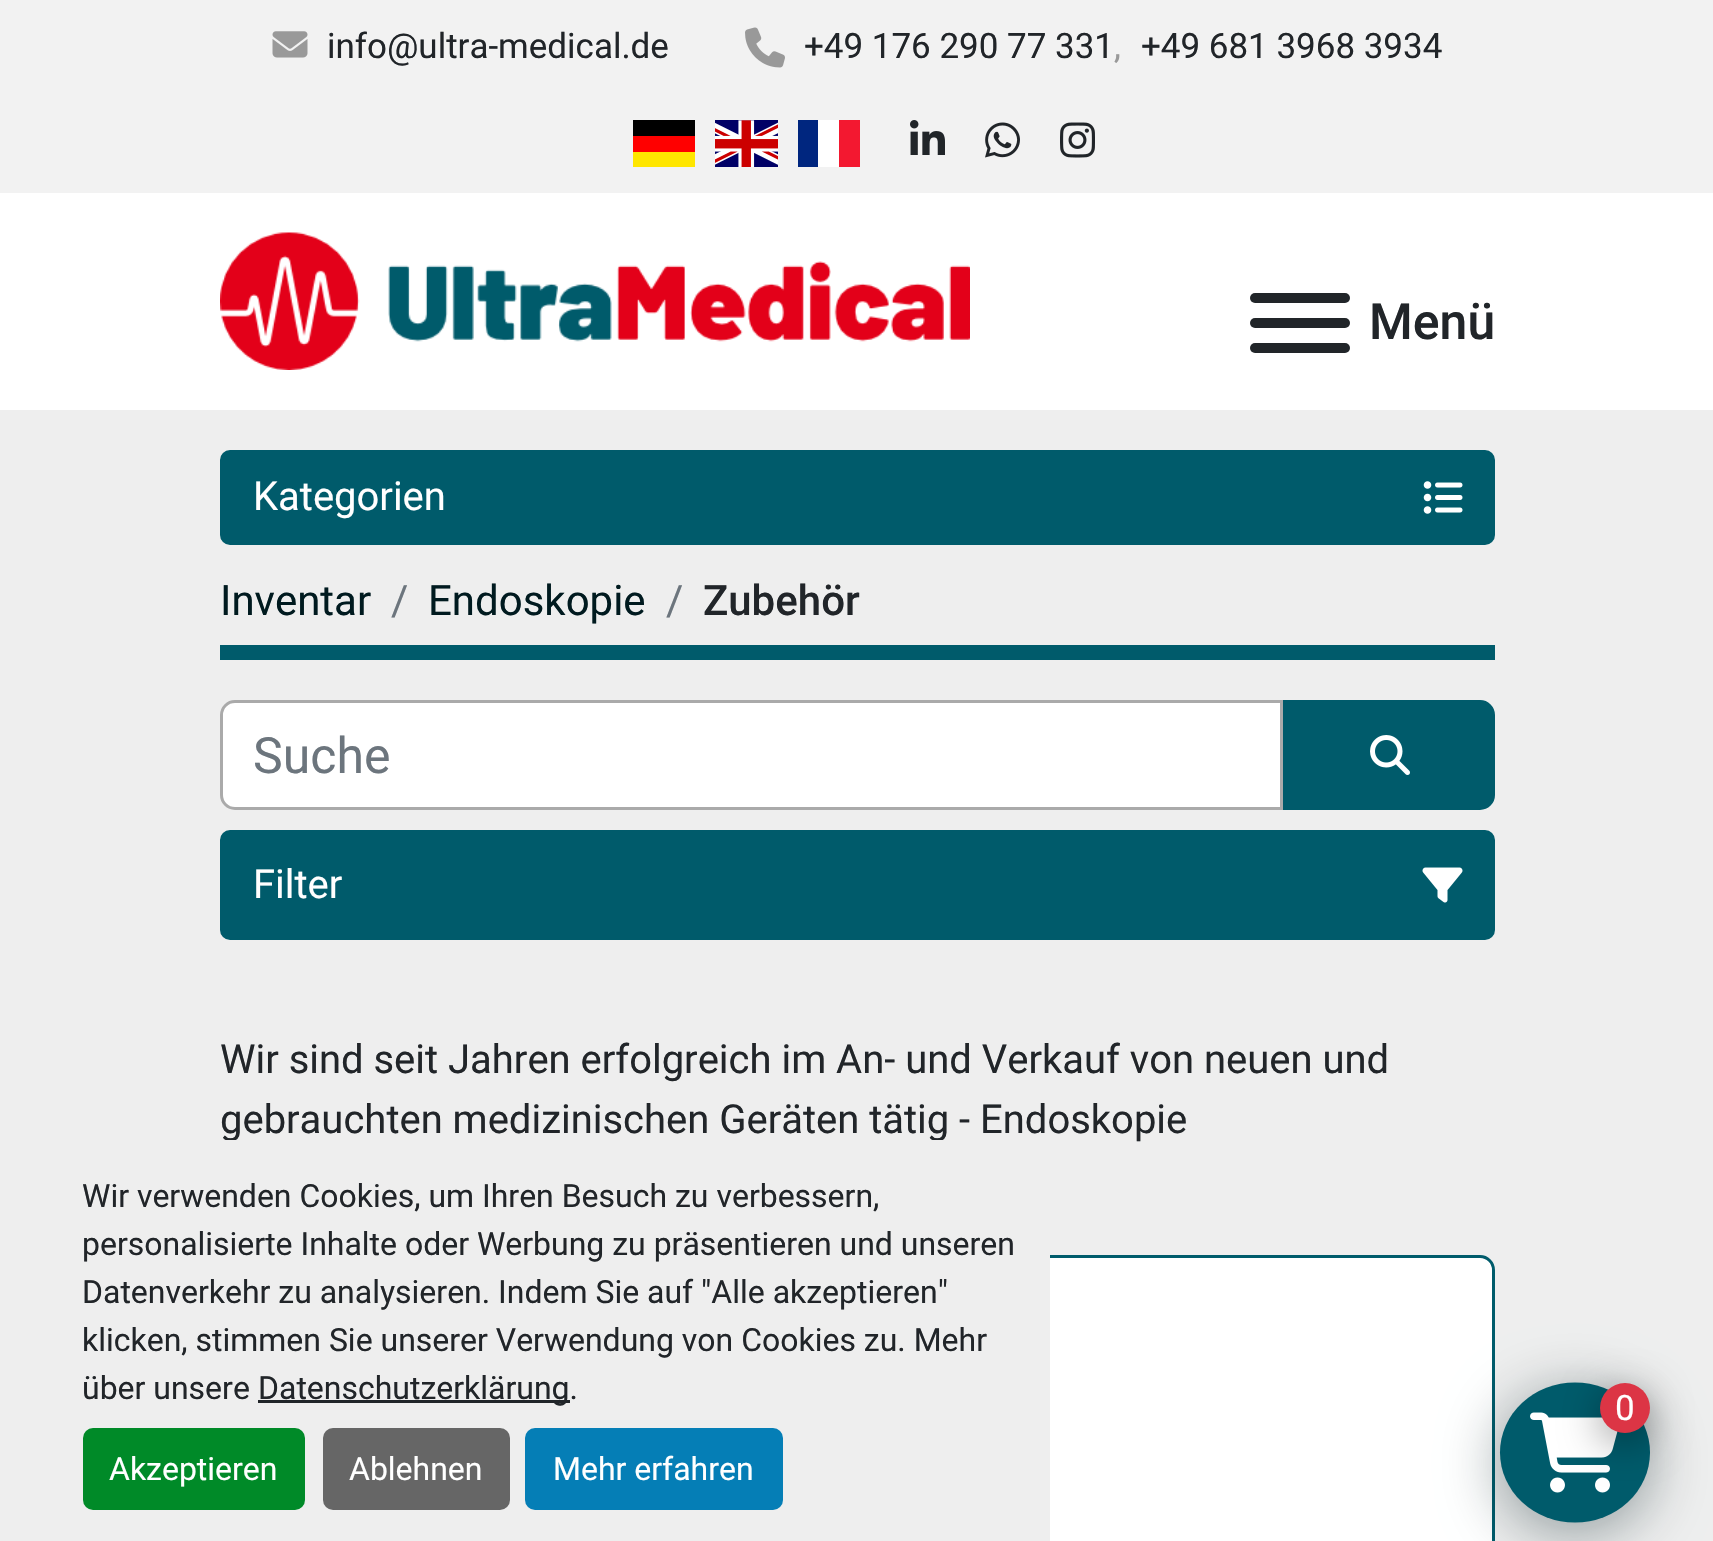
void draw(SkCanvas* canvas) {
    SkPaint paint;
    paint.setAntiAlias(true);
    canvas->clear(0xFFEEEEEE);
    paint.setColor(0xFFFFFFFF);
    canvas->drawRect(SkRect::MakeXYWH(0, 193, 1713, 217), paint);
    paint.setColor(0xFFF2F2F2);
    canvas->drawRect(SkRect::MakeXYWH(0, 0, 1713, 193), paint);
    canvas->drawImageRect(SkImages::DeferredFromEncodedData(SkData::MakeFromFileName("img1.png")), SkRect::MakeXYWH(272, 31, 36, 27), SkSamplingOptions());
    SkFont font1(fontMgr->matchFamilyStyle("Roboto", SkFontStyle::Normal()), 35);
    font1.setSubpixel(true);
    paint.setColor(0xFF212529);
    canvas->drawString("info@ultra-medical.de", 327, 58, font1, paint);
    canvas->drawImageRect(SkImages::DeferredFromEncodedData(SkData::MakeFromFileName("img2.png")), SkRect::MakeXYWH(745, 27, 40, 41), SkSamplingOptions());
    canvas->drawString("+49 176 290 77 331", 804, 58, font1, paint);
    paint.setColor(0xFF999999);
    canvas->drawString(",", 1114, 58, font1, paint);
    paint.setColor(0xFF212529);
    canvas->drawString("+49 681 3968 3934", 1141, 58, font1, paint);
    paint.setColor(0xFF000000);
    canvas->drawRect(SkRect::MakeXYWH(633, 120, 62, 16), paint);
    paint.setColor(0xFFFF0000);
    canvas->drawRect(SkRect::MakeXYWH(633, 136, 62, 16), paint);
    paint.setColor(0xFFFFE600);
    canvas->drawRect(SkRect::MakeXYWH(633, 152, 62, 15), paint);
    canvas->drawImageRect(SkImages::DeferredFromEncodedData(SkData::MakeFromFileName("img3.png")), SkRect::MakeXYWH(715, 120, 63, 47), SkSamplingOptions());
    paint.setColor(0xFF00267F);
    canvas->drawRect(SkRect::MakeXYWH(798, 120, 20, 47), paint);
    paint.setColor(0xFFFFFFFF);
    canvas->drawRect(SkRect::MakeXYWH(818, 120, 21, 47), paint);
    paint.setColor(0xFFF31830);
    canvas->drawRect(SkRect::MakeXYWH(839, 120, 21, 47), paint);
    canvas->drawImageRect(SkImages::DeferredFromEncodedData(SkData::MakeFromFileName("img4.png")), SkRect::MakeXYWH(910, 120, 35, 35), SkSamplingOptions());
    canvas->drawImageRect(SkImages::DeferredFromEncodedData(SkData::MakeFromFileName("img5.png")), SkRect::MakeXYWH(985, 122, 35, 36), SkSamplingOptions());
    canvas->drawImageRect(SkImages::DeferredFromEncodedData(SkData::MakeFromFileName("img6.png")), SkRect::MakeXYWH(1060, 122, 35, 36), SkSamplingOptions());
    canvas->drawImageRect(SkImages::DeferredFromEncodedData(SkData::MakeFromFileName("img7.png")), SkRect::MakeXYWH(220, 232, 750, 138), SkSamplingOptions());
    paint.setColor(0xFF212529);
    canvas->drawRoundRect(SkRect::MakeXYWH(1250, 318, 100, 10), 5, 5, paint);
    canvas->drawRoundRect(SkRect::MakeXYWH(1250, 293, 100, 10), 5, 5, paint);
    canvas->drawRoundRect(SkRect::MakeXYWH(1250, 343, 100, 10), 5, 5, paint);
    SkFont font2(fontMgr->matchFamilyStyle("Roboto", SkFontStyle(500, SkFontStyle::kNormal_Width, SkFontStyle::kUpright_Slant)), 50);
    font2.setSubpixel(true);
    canvas->drawString("Menü", 1369, 339, font2, paint);
    paint.setColor(0xFF005B6B);
    canvas->drawRoundRect(SkRect::MakeXYWH(221.5f, 451.5f, 1272, 92), 8.5f, 8.5f, paint);
    paint.setStyle(SkPaint::kStroke_Style);
    paint.setStrokeWidth(3);
    canvas->drawRoundRect(SkRect::MakeXYWH(221.5f, 451.5f, 1272, 92), 8.5f, 8.5f, paint);
    SkFont font3(fontMgr->matchFamilyStyle("Roboto", SkFontStyle::Normal()), 40);
    font3.setSubpixel(true);
    paint.setStyle(SkPaint::kFill_Style);
    paint.setColor(0xFFFFFFFF);
    canvas->drawString("Kategorien", 253, 510, font3, paint);
    canvas->drawImageRect(SkImages::DeferredFromEncodedData(SkData::MakeFromFileName("img8.png")), SkRect::MakeXYWH(1423, 481, 40, 33), SkSamplingOptions());
    paint.setColor(0xFF005B6B);
    canvas->drawRect(SkRect::MakeXYWH(220, 645, 1275, 15), paint);
    SkFont font4(fontMgr->matchFamilyStyle("Roboto", SkFontStyle::Normal()), 42);
    font4.setSubpixel(true);
    paint.setColor(0xFF001A1F);
    canvas->drawString("Inventar", 220, 615, font4, paint);
    paint.setColor(0xFF6C757D);
    canvas->drawString("/", 391, 615, font4, paint);
    paint.setColor(0xFF001A1F);
    canvas->drawString("Endoskopie", 428, 615, font4, paint);
    paint.setColor(0xFF6C757D);
    canvas->drawString("/", 666, 615, font4, paint);
    SkFont font5(fontMgr->matchFamilyStyle("Roboto", SkFontStyle(500, SkFontStyle::kNormal_Width, SkFontStyle::kUpright_Slant)), 42);
    font5.setSubpixel(true);
    paint.setColor(0xFF212529);
    canvas->drawString("Zubehör", 703, 615, font5, paint);
    paint.setColor(0xFFFFFFFF);
    canvas->drawPath(SkPathBuilder().moveTo(235, 701.5f).lineTo(1281.5f, 701.5f).lineTo(1281.5f, 808.5f).lineTo(235, 808.5f).cubicTo(227.5f, 808.5f, 221.5f, 802.5f, 221.5f, 795).lineTo(221.5f, 715).cubicTo(221.5f, 707.5f, 227.5f, 701.5f, 235, 701.5f).close().detach(), paint);
    paint.setStyle(SkPaint::kStroke_Style);
    paint.setColor(0xFFAAAAAA);
    canvas->drawPath(SkPathBuilder().moveTo(235, 701.5f).lineTo(1281.5f, 701.5f).lineTo(1281.5f, 808.5f).lineTo(235, 808.5f).cubicTo(227.5f, 808.5f, 221.5f, 802.5f, 221.5f, 795).lineTo(221.5f, 715).cubicTo(221.5f, 707.5f, 227.5f, 701.5f, 235, 701.5f).close().detach(), paint);
    SkFont font6(fontMgr->matchFamilyStyle("Roboto", SkFontStyle::Normal()), 50);
    font6.setSubpixel(true);
    paint.setStyle(SkPaint::kFill_Style);
    paint.setColor(0xFF6C757D);
    canvas->drawString("Suche", 253, 773, font6, paint);
    paint.setColor(0xFF005B6B);
    canvas->drawPath(SkPathBuilder().moveTo(1284.5f, 701.5f).lineTo(1480, 701.5f).cubicTo(1487.5f, 701.5f, 1493.5f, 707.5f, 1493.5f, 715).lineTo(1493.5f, 795).cubicTo(1493.5f, 802.5f, 1487.5f, 808.5f, 1480, 808.5f).lineTo(1284.5f, 808.5f).close().detach(), paint);
    paint.setStyle(SkPaint::kStroke_Style);
    canvas->drawPath(SkPathBuilder().moveTo(1284.5f, 701.5f).lineTo(1480, 701.5f).cubicTo(1487.5f, 701.5f, 1493.5f, 707.5f, 1493.5f, 715).lineTo(1493.5f, 795).cubicTo(1493.5f, 802.5f, 1487.5f, 808.5f, 1480, 808.5f).lineTo(1284.5f, 808.5f).close().detach(), paint);
    canvas->drawImageRect(SkImages::DeferredFromEncodedData(SkData::MakeFromFileName("img9.png")), SkRect::MakeXYWH(1370, 735, 40, 40), SkSamplingOptions());
    paint.setStyle(SkPaint::kFill_Style);
    canvas->drawRoundRect(SkRect::MakeXYWH(221.5f, 831.5f, 1272, 107), 8.5f, 8.5f, paint);
    paint.setStyle(SkPaint::kStroke_Style);
    canvas->drawRoundRect(SkRect::MakeXYWH(221.5f, 831.5f, 1272, 107), 8.5f, 8.5f, paint);
    paint.setStyle(SkPaint::kFill_Style);
    paint.setColor(0xFFFFFFFF);
    canvas->drawString("Filter", 253, 898, font3, paint);
    canvas->drawImageRect(SkImages::DeferredFromEncodedData(SkData::MakeFromFileName("img10.png")), SkRect::MakeXYWH(1422, 867, 41, 36), SkSamplingOptions());
    paint.setColor(0xFF212529);
    canvas->drawString("Wir sind seit Jahren erfolgreich im An- und Verkauf von neuen und", 220, 1073, font3, paint);
    canvas->drawString("gebrauchten medizinischen Geräten tätig - Endoskopie", 220, 1133, font3, paint);
    paint.setColor(0xFFFFFFFF);
    canvas->drawRoundRect(SkRect::MakeXYWH(221.5f, 1256.5f, 1272, 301), 13.5f, 13.5f, paint);
    paint.setStyle(SkPaint::kStroke_Style);
    paint.setColor(0xFF005B6B);
    canvas->drawRoundRect(SkRect::MakeXYWH(221.5f, 1256.5f, 1272, 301), 13.5f, 13.5f, paint);
    paint.setStyle(SkPaint::kFill_Style);
    paint.setColor(0x66001A1F);
    paint.setMaskFilter(SkMaskFilter::MakeBlur(kNormal_SkBlurStyle, 30));
    canvas->drawRoundRect(SkRect::MakeXYWH(1500, 1393, 150, 140), 70, 70, paint);
    paint.setMaskFilter(nullptr);
    paint.setColor(0xFF005B6B);
    canvas->drawOval(SkRect::MakeXYWH(1500, 1382.5f, 150, 140), paint);
    canvas->drawImageRect(SkImages::DeferredFromEncodedData(SkData::MakeFromFileName("img11.png")), SkRect::MakeXYWH(1530, 1412, 88, 81), SkSamplingOptions());
    paint.setColor(0x66000000);
    paint.setMaskFilter(SkMaskFilter::MakeBlur(kNormal_SkBlurStyle, 20));
    canvas->drawRoundRect(SkRect::MakeXYWH(1600, 1393, 50, 50), 25, 25, paint);
    paint.setMaskFilter(nullptr);
    paint.setColor(0xFFDC3545);
    canvas->drawCircle(1625, 1408, 25, paint);
    paint.setColor(0xFFFFFFFF);
    canvas->drawString("0", 1615, 1420, font1, paint);
    paint.setColor(0xFFEEEEEE);
    canvas->drawRect(SkRect::MakeXYWH(220, 1140, 830, 401), paint);
    SkFont font7(fontMgr->matchFamilyStyle("Roboto", SkFontStyle::Normal()), 32);
    font7.setSubpixel(true);
    paint.setColor(0xFF212529);
    canvas->drawString("Wir verwenden Cookies, um Ihren Besuch zu verbessern,", 82, 1207, font7, paint);
    canvas->drawString("personalisierte Inhalte oder Werbung zu präsentieren und unseren", 82, 1255, font7, paint);
    canvas->drawString("Datenverkehr zu analysieren. Indem Sie auf \"Alle akzeptieren\"", 82, 1303, font7, paint);
    canvas->drawString("klicken, stimmen Sie unserer Verwendung von Cookies zu. Mehr", 82, 1351, font7, paint);
    canvas->drawString("über unsere", 82, 1399, font7, paint);
    canvas->drawRect(SkRect::MakeXYWH(258, 1400, 312, 3), paint);
    canvas->drawString("Datenschutzerklärung.", 258, 1399, font7, paint);
    paint.setColor(0xFF008A28);
    canvas->drawRoundRect(SkRect::MakeXYWH(83, 1428, 222, 82), 10, 10, paint);
    paint.setColor(0xFFFFFFFF);
    canvas->drawString("Akzeptieren", 109, 1480, font7, paint);
    paint.setColor(0xFF666666);
    canvas->drawRoundRect(SkRect::MakeXYWH(323, 1428, 187, 82), 10, 10, paint);
    paint.setColor(0xFFFFFFFF);
    canvas->drawString("Ablehnen", 349, 1480, font7, paint);
    paint.setColor(0xFF057EB6);
    canvas->drawRoundRect(SkRect::MakeXYWH(525, 1428, 258, 82), 10, 10, paint);
    paint.setColor(0xFFFFFFFF);
    canvas->drawString("Mehr erfahren", 553, 1480, font7, paint);
}
